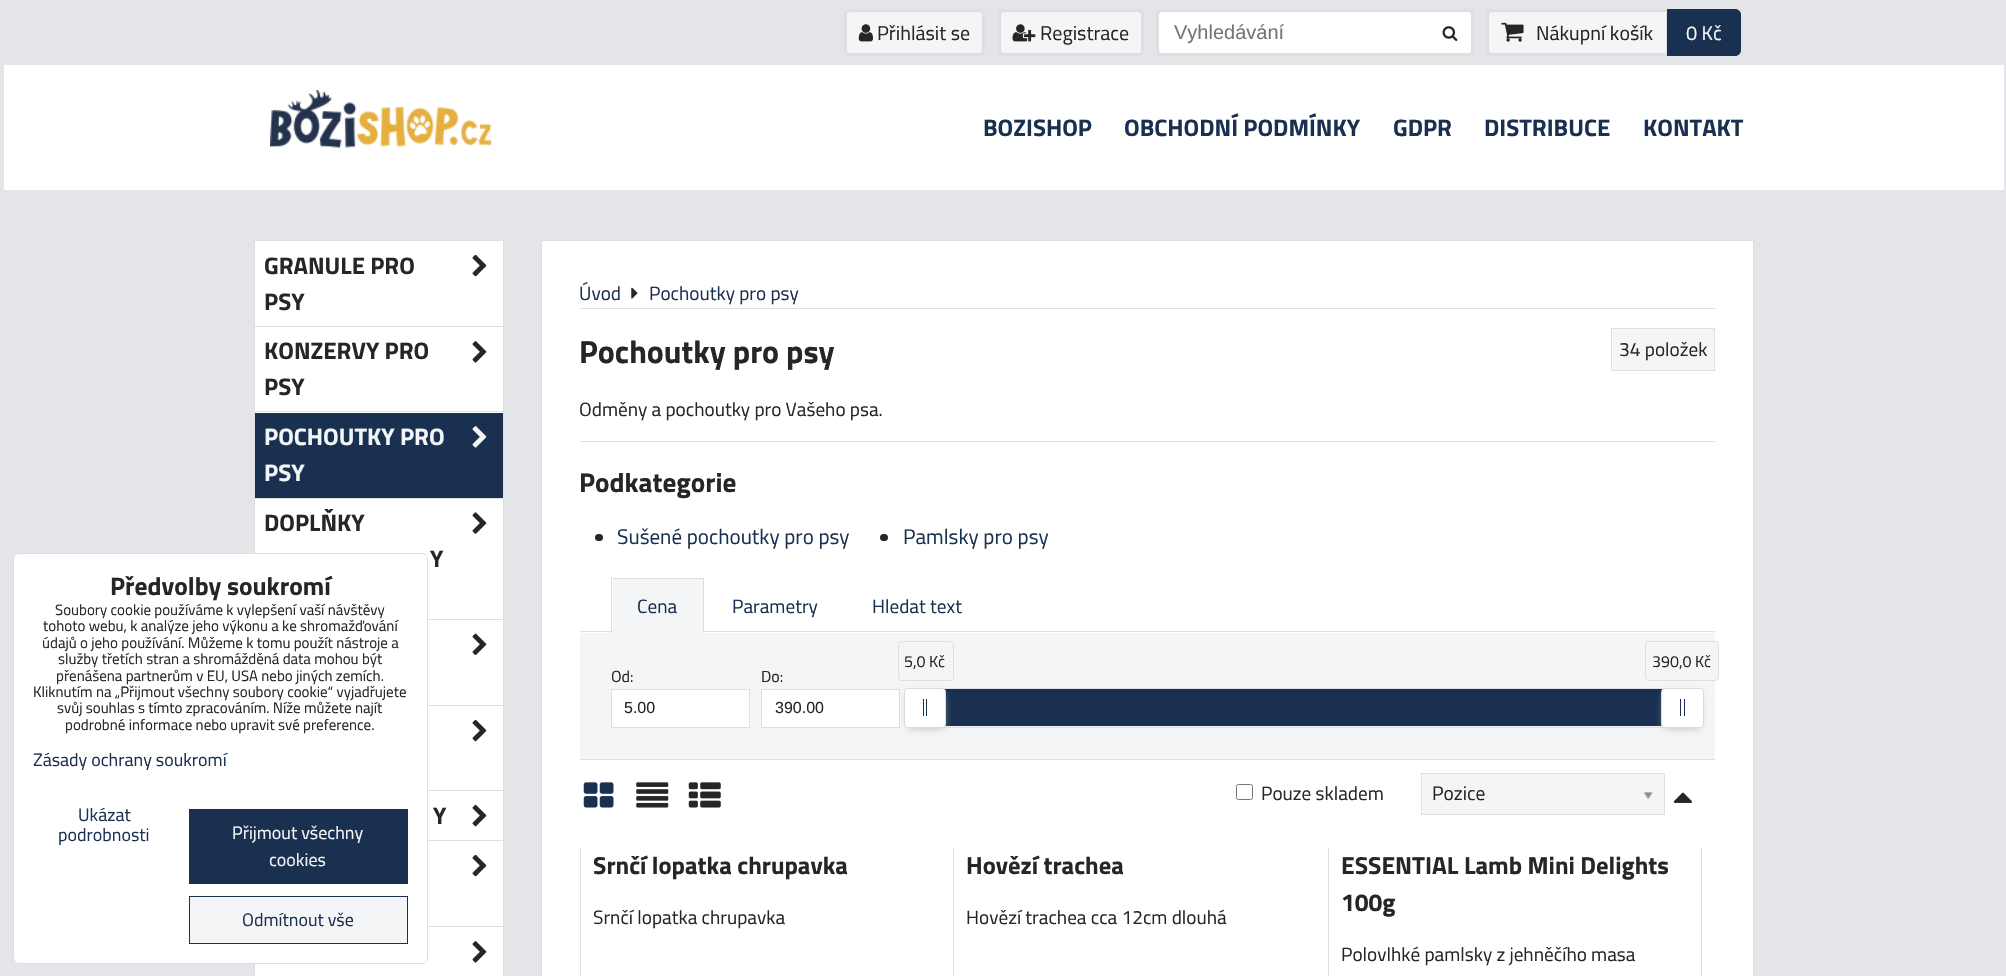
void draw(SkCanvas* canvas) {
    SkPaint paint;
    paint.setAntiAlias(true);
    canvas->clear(0xFFE3E5E9);
    paint.setColor(0xFFFFFFFF);
    canvas->drawRect(SkRect::MakeXYWH(254.5f, 240.5f, 249, 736), paint);
    paint.setStyle(SkPaint::kStroke_Style);
    paint.setStrokeWidth(1);
    paint.setColor(0xFFDFDFDF);
    canvas->drawRect(SkRect::MakeXYWH(254.5f, 240.5f, 249, 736), paint);
    paint.setStyle(SkPaint::kFill_Style);
    paint.setColor(0xFFFFFFFF);
    canvas->drawRoundRect(SkRect::MakeXYWH(13.5f, 553.5f, 414, 410), 5.5f, 5.5f, paint);
    paint.setStyle(SkPaint::kStroke_Style);
    paint.setColor(0xFFDFDFDF);
    canvas->drawRoundRect(SkRect::MakeXYWH(13.5f, 553.5f, 414, 410), 5.5f, 5.5f, paint);
    SkFont font1(fontMgr->matchFamilyStyle("Titillium Web", SkFontStyle::Bold()), 25.5f);
    font1.setSubpixel(true);
    paint.setStyle(SkPaint::kFill_Style);
    paint.setColor(0xFF262626);
    canvas->drawString("Předvolby soukromí", 110, 595, font1, paint);
    SkFont font2(fontMgr->matchFamilyStyle("Titillium Web", SkFontStyle::Normal()), 15);
    font2.setSubpixel(true);
    canvas->drawString("Soubory cookie používáme k vylepšení vaší návštěvy", 55, 615, font2, paint);
    canvas->drawString("tohoto webu, k analýze jeho výkonu a ke shromažďování", 43, 631, font2, paint);
    canvas->drawString("údajů o jeho používání. Můžeme k tomu použít nástroje a", 42, 648, font2, paint);
    canvas->drawString("služby třetích stran a shromážděná data mohou být", 58, 664, font2, paint);
    canvas->drawString("přenášena partnerům v EU, USA nebo jiných zemích.", 56, 681, font2, paint);
    canvas->drawString("Kliknutím na „Přijmout všechny soubory cookie“ vyjadřujete", 33, 697, font2, paint);
    canvas->drawString("svůj souhlas s tímto zpracováním. Níže můžete najít", 57, 713, font2, paint);
    canvas->drawString("podrobné informace nebo upravit své preference.", 65, 730, font2, paint);
    SkFont font3(fontMgr->matchFamilyStyle("Titillium Web", SkFontStyle::Normal()), 18);
    font3.setSubpixel(true);
    paint.setColor(0xFF1A3051);
    canvas->drawString("Zásady ochrany soukromí", 33, 766, font3, paint);
    canvas->drawString("Ukázat", 78, 821, font3, paint);
    canvas->drawString("podrobnosti", 58, 841, font3, paint);
    canvas->drawRect(SkRect::MakeXYWH(189, 809, 219, 75), paint);
    paint.setColor(0xFFF4F5F6);
    canvas->drawString("Přijmout všechny", 232, 839, font3, paint);
    canvas->drawString("cookies", 269, 866, font3, paint);
    canvas->drawRect(SkRect::MakeXYWH(189.5f, 896.5f, 218, 47), paint);
    paint.setStyle(SkPaint::kStroke_Style);
    paint.setColor(0xFF1A3051);
    canvas->drawRect(SkRect::MakeXYWH(189.5f, 896.5f, 218, 47), paint);
    paint.setStyle(SkPaint::kFill_Style);
    canvas->drawString("Odmítnout vše", 242, 926, font3, paint);
    paint.setColor(0xFFF4F5F6);
    canvas->drawRoundRect(SkRect::MakeXYWH(845.5f, 10.5f, 138, 44), 4.5f, 4.5f, paint);
    paint.setStyle(SkPaint::kStroke_Style);
    paint.setStrokeWidth(3);
    paint.setColor(0xFFDFDFDF);
    canvas->drawRoundRect(SkRect::MakeXYWH(845.5f, 10.5f, 138, 44), 4.5f, 4.5f, paint);
    canvas->drawImageRect(SkImages::DeferredFromEncodedData(SkData::MakeFromFileName("img1.png")), SkRect::MakeXYWH(858, 24, 15, 18), SkSamplingOptions());
    SkFont font4(fontMgr->matchFamilyStyle("Titillium Web", SkFontStyle::Normal()), 20);
    font4.setSubpixel(true);
    paint.setStyle(SkPaint::kFill_Style);
    paint.setColor(0xFF262626);
    canvas->drawString("Přihlásit se", 877, 40, font4, paint);
    paint.setColor(0xFFF4F5F6);
    canvas->drawRoundRect(SkRect::MakeXYWH(999.5f, 10.5f, 143, 44), 4.5f, 4.5f, paint);
    paint.setStyle(SkPaint::kStroke_Style);
    paint.setColor(0xFFDFDFDF);
    canvas->drawRoundRect(SkRect::MakeXYWH(999.5f, 10.5f, 143, 44), 4.5f, 4.5f, paint);
    canvas->drawImageRect(SkImages::DeferredFromEncodedData(SkData::MakeFromFileName("img2.png")), SkRect::MakeXYWH(1012, 24, 24, 18), SkSamplingOptions());
    paint.setStyle(SkPaint::kFill_Style);
    paint.setColor(0xFF262626);
    canvas->drawString("Registrace", 1040, 40, font4, paint);
    paint.setColor(0xFFFFFFFF);
    canvas->drawRoundRect(SkRect::MakeXYWH(1157.5f, 10.5f, 315, 44), 4.5f, 4.5f, paint);
    paint.setStyle(SkPaint::kStroke_Style);
    paint.setColor(0xFFDFDFDF);
    canvas->drawRoundRect(SkRect::MakeXYWH(1157.5f, 10.5f, 315, 44), 4.5f, 4.5f, paint);
    SkFont font5(fontMgr->matchFamilyStyle("Liberation Sans", SkFontStyle::Normal()), 20);
    font5.setSubpixel(true);
    paint.setStyle(SkPaint::kFill_Style);
    paint.setColor(0xFF757575);
    canvas->drawString("Vyhledávání", 1174, 39, font5, paint);
    canvas->drawImageRect(SkImages::DeferredFromEncodedData(SkData::MakeFromFileName("img3.png")), SkRect::MakeXYWH(1442, 26, 16, 15), SkSamplingOptions());
    paint.setColor(0xFFF4F5F6);
    canvas->drawRoundRect(SkRect::MakeXYWH(1487.5f, 10.5f, 252, 44), 4.5f, 4.5f, paint);
    paint.setStyle(SkPaint::kStroke_Style);
    paint.setColor(0xFFDFDFDF);
    canvas->drawRoundRect(SkRect::MakeXYWH(1487.5f, 10.5f, 252, 44), 4.5f, 4.5f, paint);
    canvas->drawImageRect(SkImages::DeferredFromEncodedData(SkData::MakeFromFileName("img4.png")), SkRect::MakeXYWH(1501, 22, 23, 20), SkSamplingOptions());
    paint.setStyle(SkPaint::kFill_Style);
    paint.setColor(0xFF262626);
    canvas->drawString("Nákupní košík", 1536, 40, font4, paint);
    paint.setColor(0xFF1A3051);
    canvas->drawPath(SkPathBuilder().moveTo(1666, 9).lineTo(1735, 9).cubicTo(1738.5f, 9, 1741, 11.5f, 1741, 15).lineTo(1741, 50).cubicTo(1741, 53.5f, 1738.5f, 56, 1735, 56).lineTo(1666, 56).close().detach(), paint);
    paint.setColor(0xFFDFDFDF);
    canvas->drawRect(SkRect::MakeXYWH(1666, 9, 1, 47), paint);
    paint.setColor(0xFFF4F5F6);
    canvas->drawString("0 Kč", 1686, 40, font4, paint);
    paint.setColor(0xFFFFFFFF);
    canvas->drawRect(SkRect::MakeXYWH(4, 65, 2000, 125), paint);
    canvas->drawImageRect(SkImages::DeferredFromEncodedData(SkData::MakeFromFileName("img5.png")), SkRect::MakeXYWH(270, 90, 222, 58), SkSamplingOptions());
    SkFont font6(fontMgr->matchFamilyStyle("Titillium Web", SkFontStyle::Bold()), 24);
    font6.setSubpixel(true);
    paint.setColor(0xFF1A3051);
    canvas->drawString("BOZISHOP", 983, 136, font6, paint);
    canvas->drawString("OBCHODNÍ PODMÍNKY", 1124, 136, font6, paint);
    canvas->drawString("GDPR", 1393, 136, font6, paint);
    canvas->drawString("DISTRIBUCE", 1484, 136, font6, paint);
    canvas->drawString("KONTAKT", 1643, 136, font6, paint);
    paint.setColor(0xFFDFDFDF);
    canvas->drawRect(SkRect::MakeXYWH(255, 326, 248, 1), paint);
    paint.setColor(0xFF262626);
    canvas->drawString("GRANULE PRO", 264, 274, font6, paint);
    canvas->drawImageRect(SkImages::DeferredFromEncodedData(SkData::MakeFromFileName("img6.png")), SkRect::MakeXYWH(472, 254, 15, 23), SkSamplingOptions());
    canvas->drawString("PSY", 264, 310, font6, paint);
    paint.setColor(0xFFDFDFDF);
    canvas->drawRect(SkRect::MakeXYWH(255, 411, 248, 1), paint);
    paint.setColor(0xFF262626);
    canvas->drawString("KONZERVY PRO", 264, 359, font6, paint);
    canvas->drawImageRect(SkImages::DeferredFromEncodedData(SkData::MakeFromFileName("img7.png")), SkRect::MakeXYWH(472, 341, 15, 22), SkSamplingOptions());
    canvas->drawString("PSY", 264, 395, font6, paint);
    paint.setColor(0xFF1A3051);
    canvas->drawRect(SkRect::MakeXYWH(255, 413, 248, 85), paint);
    paint.setColor(0xFFDFDFDF);
    canvas->drawRect(SkRect::MakeXYWH(255, 498, 248, 1), paint);
    paint.setColor(0xFFF4F5F6);
    canvas->drawString("POCHOUTKY PRO", 264, 445, font6, paint);
    canvas->drawImageRect(SkImages::DeferredFromEncodedData(SkData::MakeFromFileName("img8.png")), SkRect::MakeXYWH(472, 426, 15, 22), SkSamplingOptions());
    canvas->drawString("PSY", 264, 481, font6, paint);
    paint.setColor(0xFFDFDFDF);
    canvas->drawRect(SkRect::MakeXYWH(428, 619, 75, 1), paint);
    paint.setColor(0xFF262626);
    canvas->drawString("DOPLŇKY", 264, 531, font6, paint);
    canvas->drawImageRect(SkImages::DeferredFromEncodedData(SkData::MakeFromFileName("img9.png")), SkRect::MakeXYWH(472, 512, 15, 22), SkSamplingOptions());
    canvas->drawString("Y", 430, 567, font6, paint);
    paint.setColor(0xFFDFDFDF);
    canvas->drawRect(SkRect::MakeXYWH(428, 705, 75, 1), paint);
    canvas->drawImageRect(SkImages::DeferredFromEncodedData(SkData::MakeFromFileName("img10.png")), SkRect::MakeXYWH(472, 633, 15, 23), SkSamplingOptions());
    canvas->drawRect(SkRect::MakeXYWH(428, 790, 75, 1), paint);
    canvas->drawImageRect(SkImages::DeferredFromEncodedData(SkData::MakeFromFileName("img6.png")), SkRect::MakeXYWH(472, 719, 15, 23), SkSamplingOptions());
    canvas->drawRect(SkRect::MakeXYWH(428, 840, 75, 1), paint);
    paint.setColor(0xFF262626);
    canvas->drawString("Y", 433, 824, font6, paint);
    canvas->drawImageRect(SkImages::DeferredFromEncodedData(SkData::MakeFromFileName("img6.png")), SkRect::MakeXYWH(472, 804, 15, 23), SkSamplingOptions());
    paint.setColor(0xFFDFDFDF);
    canvas->drawRect(SkRect::MakeXYWH(428, 926, 75, 1), paint);
    canvas->drawImageRect(SkImages::DeferredFromEncodedData(SkData::MakeFromFileName("img6.png")), SkRect::MakeXYWH(472, 854, 15, 23), SkSamplingOptions());
    canvas->drawImageRect(SkImages::DeferredFromEncodedData(SkData::MakeFromFileName("img7.png")), SkRect::MakeXYWH(472, 941, 15, 22), SkSamplingOptions());
    paint.setColor(0xFFFFFFFF);
    canvas->drawRect(SkRect::MakeXYWH(541.5f, 240.5f, 1212, 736), paint);
    paint.setStyle(SkPaint::kStroke_Style);
    paint.setStrokeWidth(1);
    paint.setColor(0xFFDFDFDF);
    canvas->drawRect(SkRect::MakeXYWH(541.5f, 240.5f, 1212, 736), paint);
    SkFont font7(fontMgr->matchFamilyStyle("Titillium Web", SkFontStyle::Normal()), 19.25f);
    font7.setSubpixel(true);
    paint.setStyle(SkPaint::kFill_Style);
    paint.setColor(0xFF1A3051);
    canvas->drawString("Úvod", 579, 300, font7, paint);
    canvas->drawImageRect(SkImages::DeferredFromEncodedData(SkData::MakeFromFileName("img11.png")), SkRect::MakeXYWH(631, 287, 7, 12), SkSamplingOptions());
    canvas->drawString("Pochoutky pro psy", 649, 300, font7, paint);
    paint.setColor(0xFFDFDFDF);
    canvas->drawRect(SkRect::MakeXYWH(580, 308, 1135, 1), paint);
    SkFont font8(fontMgr->matchFamilyStyle("Titillium Web", SkFontStyle::Bold()), 32);
    font8.setSubpixel(true);
    paint.setColor(0xFF262626);
    canvas->drawString("Pochoutky pro psy", 579, 363, font8, paint);
    paint.setColor(0xFFF4F5F6);
    canvas->drawRect(SkRect::MakeXYWH(1611.5f, 328.5f, 103, 42), paint);
    paint.setStyle(SkPaint::kStroke_Style);
    paint.setColor(0xFFDFDFDF);
    canvas->drawRect(SkRect::MakeXYWH(1611.5f, 328.5f, 103, 42), paint);
    paint.setStyle(SkPaint::kFill_Style);
    paint.setColor(0xFF262626);
    canvas->drawString("34 položek", 1619, 356, font7, paint);
    canvas->drawString("Odměny a pochoutky pro Vašeho psa.", 579, 416, font7, paint);
    paint.setColor(0xFFDFDFDF);
    canvas->drawRect(SkRect::MakeXYWH(580, 441, 1135, 1), paint);
    SkFont font9(fontMgr->matchFamilyStyle("Titillium Web", SkFontStyle::Bold()), 27.25f);
    font9.setSubpixel(true);
    paint.setColor(0xFF262626);
    canvas->drawString("Podkategorie", 579, 492, font9, paint);
    canvas->drawRoundRect(SkRect::MakeXYWH(595, 534, 8, 7), 3.5f, 3.5f, paint);
    SkFont font10(fontMgr->matchFamilyStyle("Titillium Web", SkFontStyle::Normal()), 21.1f);
    font10.setSubpixel(true);
    paint.setColor(0xFF1A3051);
    canvas->drawString("Sušené pochoutky pro psy", 617, 544, font10, paint);
    paint.setColor(0xFF262626);
    canvas->drawRoundRect(SkRect::MakeXYWH(880, 534, 8, 7), 3.5f, 3.5f, paint);
    paint.setColor(0xFF1A3051);
    canvas->drawString("Pamlsky pro psy", 903, 544, font10, paint);
    paint.setColor(0xFFDFDFDF);
    canvas->drawRect(SkRect::MakeXYWH(580, 631, 1135, 1), paint);
    paint.setColor(0xFFF4F5F6);
    canvas->drawRect(SkRect::MakeXYWH(613, 579, 90, 54), paint);
    paint.setColor(0xFFDFDFDF);
    canvas->drawRect(SkRect::MakeXYWH(611, 578, 93, 1), paint);
    canvas->drawRect(SkRect::MakeXYWH(703, 578, 1, 55), paint);
    canvas->drawRect(SkRect::MakeXYWH(611, 578, 1, 55), paint);
    paint.setColor(0xFF1A3051);
    canvas->drawString("Cena", 637, 613, font7, paint);
    canvas->drawString("Parametry", 732, 613, font7, paint);
    canvas->drawString("Hledat text", 872, 613, font7, paint);
    paint.setColor(0xFFF4F5F6);
    canvas->drawRect(SkRect::MakeXYWH(580, 633, 1135, 126), paint);
    paint.setColor(0xFFDFDFDF);
    canvas->drawRect(SkRect::MakeXYWH(580, 759, 1135, 1), paint);
    paint.setStyle(SkPaint::kStroke_Style);
    canvas->drawRect(SkRect::MakeXYWH(924.5f, 688.5f, 759, 39), paint);
    paint.setStyle(SkPaint::kFill_Style);
    paint.setColor(0xFF1A3051);
    canvas->drawRect(SkRect::MakeXYWH(944, 689, 719, 37), paint);
    paint.setColor(0xFFFFFFFF);
    canvas->drawRect(SkRect::MakeXYWH(761.5f, 689.5f, 138, 38), paint);
    paint.setStyle(SkPaint::kStroke_Style);
    paint.setColor(0xFFDFDFDF);
    canvas->drawRect(SkRect::MakeXYWH(761.5f, 689.5f, 138, 38), paint);
    paint.setStyle(SkPaint::kFill_Style);
    paint.setColor(0xFFBBBBBB);
    paint.setMaskFilter(SkMaskFilter::MakeBlur(kNormal_SkBlurStyle, 4));
    canvas->drawRect(SkRect::MakeXYWH(908, 695, 35, 33), paint);
    paint.setMaskFilter(nullptr);
    paint.setColor(0xFFFFFFFF);
    canvas->drawRoundRect(SkRect::MakeXYWH(904.5f, 688.5f, 41, 39), 3.5f, 3.5f, paint);
    paint.setStyle(SkPaint::kStroke_Style);
    paint.setColor(0xFFD9D9D9);
    canvas->drawRoundRect(SkRect::MakeXYWH(904.5f, 688.5f, 41, 39), 3.5f, 3.5f, paint);
    paint.setColor(0xFFDFDFDF);
    canvas->drawRoundRect(SkRect::MakeXYWH(898.5f, 641.5f, 55, 39), 3.5f, 3.5f, paint);
    SkFont font11(fontMgr->matchFamilyStyle("Titillium Web", SkFontStyle::Normal()), 16);
    font11.setSubpixel(true);
    paint.setStyle(SkPaint::kFill_Style);
    paint.setColor(0xFF262626);
    canvas->drawString("5,0 Kč", 904, 667, font11, paint);
    paint.setColor(0xFF1A3051);
    canvas->drawRect(SkRect::MakeXYWH(923, 699, 1, 17), paint);
    canvas->drawRect(SkRect::MakeXYWH(926, 699, 1, 17), paint);
    paint.setColor(0xFFBBBBBB);
    paint.setMaskFilter(SkMaskFilter::MakeBlur(kNormal_SkBlurStyle, 4));
    canvas->drawRect(SkRect::MakeXYWH(1665, 695, 35, 33), paint);
    paint.setMaskFilter(nullptr);
    paint.setColor(0xFFFFFFFF);
    canvas->drawRoundRect(SkRect::MakeXYWH(1661.5f, 688.5f, 42, 39), 3.5f, 3.5f, paint);
    paint.setStyle(SkPaint::kStroke_Style);
    paint.setColor(0xFFD9D9D9);
    canvas->drawRoundRect(SkRect::MakeXYWH(1661.5f, 688.5f, 42, 39), 3.5f, 3.5f, paint);
    paint.setStyle(SkPaint::kFill_Style);
    paint.setColor(0xFFF4F5F6);
    canvas->drawRoundRect(SkRect::MakeXYWH(1645.5f, 641.5f, 73, 39), 3.5f, 3.5f, paint);
    paint.setStyle(SkPaint::kStroke_Style);
    paint.setColor(0xFFDFDFDF);
    canvas->drawRoundRect(SkRect::MakeXYWH(1645.5f, 641.5f, 73, 39), 3.5f, 3.5f, paint);
    paint.setStyle(SkPaint::kFill_Style);
    paint.setColor(0xFF262626);
    canvas->drawString("390,0 Kč", 1652, 667, font11, paint);
    paint.setColor(0xFF1A3051);
    canvas->drawRect(SkRect::MakeXYWH(1680, 699, 1, 17), paint);
    canvas->drawRect(SkRect::MakeXYWH(1684, 699, 1, 17), paint);
    paint.setColor(0xFF262626);
    canvas->drawString("Od:", 611, 682, font11, paint);
    paint.setColor(0xFFFFFFFF);
    canvas->drawRect(SkRect::MakeXYWH(611.5f, 689.5f, 138, 38), paint);
    paint.setStyle(SkPaint::kStroke_Style);
    paint.setColor(0xFFDFDFDF);
    canvas->drawRect(SkRect::MakeXYWH(611.5f, 689.5f, 138, 38), paint);
    SkFont font12(fontMgr->matchFamilyStyle("Liberation Sans", SkFontStyle::Normal()), 16);
    font12.setSubpixel(true);
    paint.setStyle(SkPaint::kFill_Style);
    paint.setColor(0xFF262626);
    canvas->drawString("5.00", 624, 713, font12, paint);
    canvas->drawString("Do:", 761, 682, font11, paint);
    canvas->drawString("390.00", 775, 713, font12, paint);
    canvas->drawImageRect(SkImages::DeferredFromEncodedData(SkData::MakeFromFileName("img12.png")), SkRect::MakeXYWH(583, 782, 31, 26), SkSamplingOptions());
    canvas->drawImageRect(SkImages::DeferredFromEncodedData(SkData::MakeFromFileName("img13.png")), SkRect::MakeXYWH(636, 782, 33, 26), SkSamplingOptions());
    canvas->drawImageRect(SkImages::DeferredFromEncodedData(SkData::MakeFromFileName("img14.png")), SkRect::MakeXYWH(688, 782, 33, 26), SkSamplingOptions());
    paint.setStyle(SkPaint::kStroke_Style);
    paint.setColor(0xFF767676);
    canvas->drawRoundRect(SkRect::MakeXYWH(1236.5f, 784.5f, 16, 15), 2, 2, paint);
    paint.setStyle(SkPaint::kFill_Style);
    paint.setColor(0xFF262626);
    canvas->drawString("Pouze skladem", 1261, 800, font7, paint);
    paint.setColor(0xFFF4F5F6);
    canvas->drawRect(SkRect::MakeXYWH(1421.5f, 773.5f, 243, 41), paint);
    paint.setStyle(SkPaint::kStroke_Style);
    paint.setColor(0xFFDFDFDF);
    canvas->drawRect(SkRect::MakeXYWH(1421.5f, 773.5f, 243, 41), paint);
    SkFont font13(fontMgr->matchFamilyStyle("Titillium Web", SkFontStyle::Normal()), 19.5f);
    font13.setSubpixel(true);
    paint.setStyle(SkPaint::kFill_Style);
    paint.setColor(0xFF262626);
    canvas->drawString("Pozice", 1432, 800, font13, paint);
    canvas->drawImageRect(SkImages::DeferredFromEncodedData(SkData::MakeFromFileName("img15.png")), SkRect::MakeXYWH(1643, 792, 10, 7), SkSamplingOptions());
    canvas->drawImageRect(SkImages::DeferredFromEncodedData(SkData::MakeFromFileName("img16.png")), SkRect::MakeXYWH(1673, 792, 19, 11), SkSamplingOptions());
    paint.setColor(0xFFDFDFDF);
    canvas->drawRect(SkRect::MakeXYWH(953, 848, 1, 128), paint);
    canvas->drawRect(SkRect::MakeXYWH(580, 848, 1, 128), paint);
    SkFont font14(fontMgr->matchFamilyStyle("Titillium Web", SkFontStyle::Bold()), 24.6f);
    font14.setSubpixel(true);
    paint.setColor(0xFF262626);
    canvas->drawString("Srnčí lopatka chrupavka", 593, 874, font14, paint);
    canvas->drawString("Srnčí lopatka chrupavka", 593, 924, font7, paint);
    paint.setColor(0xFFDFDFDF);
    canvas->drawRect(SkRect::MakeXYWH(1328, 848, 1, 128), paint);
    paint.setColor(0xFF262626);
    canvas->drawString("Hovězí trachea", 966, 874, font14, paint);
    canvas->drawString("Hovězí trachea cca 12cm dlouhá", 966, 924, font7, paint);
    paint.setColor(0xFFDFDFDF);
    canvas->drawRect(SkRect::MakeXYWH(1701, 848, 1, 128), paint);
    paint.setColor(0xFF262626);
    canvas->drawString("ESSENTIAL Lamb Mini Delights", 1341, 874, font14, paint);
    canvas->drawString("100g", 1341, 911, font14, paint);
    canvas->drawString("Polovlhké pamlsky z jehněčího masa", 1341, 961, font7, paint);
}
